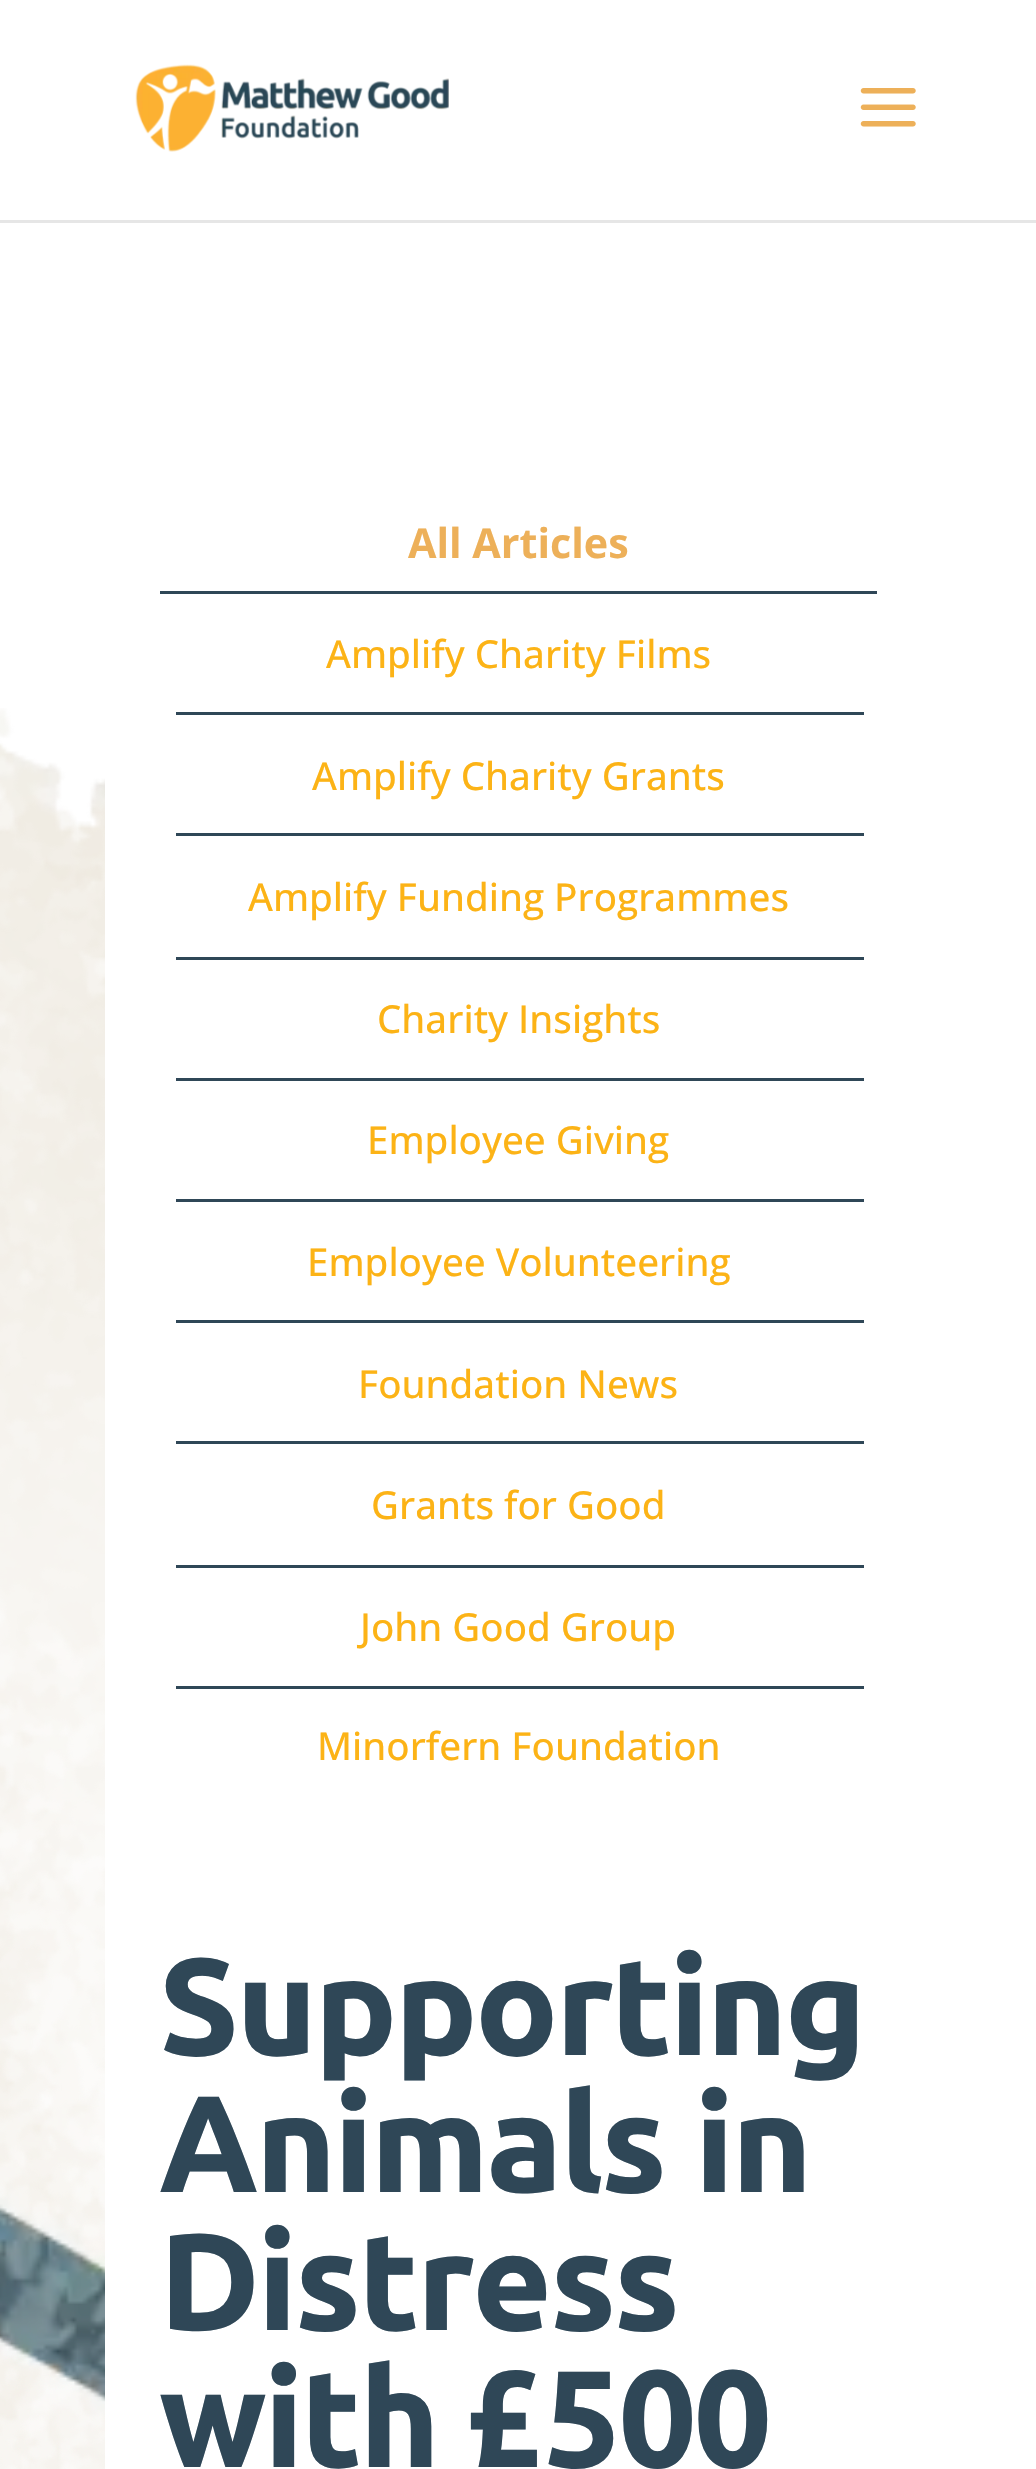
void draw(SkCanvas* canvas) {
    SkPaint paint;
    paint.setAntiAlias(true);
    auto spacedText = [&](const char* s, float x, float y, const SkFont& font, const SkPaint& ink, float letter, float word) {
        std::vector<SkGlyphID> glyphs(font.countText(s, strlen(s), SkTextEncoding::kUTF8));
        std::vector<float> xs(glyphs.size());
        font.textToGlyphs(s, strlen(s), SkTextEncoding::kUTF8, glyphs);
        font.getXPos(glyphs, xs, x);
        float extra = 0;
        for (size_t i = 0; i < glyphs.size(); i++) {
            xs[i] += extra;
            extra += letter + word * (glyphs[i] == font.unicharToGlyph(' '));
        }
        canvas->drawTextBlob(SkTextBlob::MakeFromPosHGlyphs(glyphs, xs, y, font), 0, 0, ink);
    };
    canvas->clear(0xFFFFFFFF);
    paint.setColor(0xFFE6E6E6);
    canvas->drawPath(SkPathBuilder().moveTo(0, 220).lineTo(0, 223).lineTo(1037, 223).lineTo(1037, 3).lineTo(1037, 220).close().detach(), paint);
    canvas->drawImageRect(SkImages::DeferredFromEncodedData(SkData::MakeFromFileName("img1.png")), SkRect::MakeXYWH(135, 64, 314, 88), SkSamplingOptions());
    canvas->drawImageRect(SkImages::DeferredFromEncodedData(SkData::MakeFromFileName("img2.png")), SkRect::MakeXYWH(860, 88, 56, 39), SkSamplingOptions());
    canvas->drawImageRect(SkImages::DeferredFromEncodedData(SkData::MakeFromFileName("img3.png")), SkRect::MakeXYWH(0, 708, 105, 1761), SkSamplingOptions());
    paint.setColor(0xFF2F4757);
    canvas->drawRect(SkRect::MakeXYWH(160, 591, 717, 3), paint);
    SkFont font1(fontMgr->matchFamilyStyle("Open Sans", SkFontStyle::Bold()), 41.25f);
    font1.setSubpixel(true);
    paint.setColor(0xFFEDB059);
    canvas->drawString("All Articles", 408, 558, font1, paint);
    paint.setColor(0xFF2F4757);
    canvas->drawRect(SkRect::MakeXYWH(173, 712, 691, 3), paint);
    paint.setColor(0xFFFFFFFF);
    canvas->drawRect(SkRect::MakeXYWH(173, 712, 3, 3), paint);
    SkFont font2(fontMgr->matchFamilyStyle("Open Sans", SkFontStyle(500, SkFontStyle::kNormal_Width, SkFontStyle::kUpright_Slant)), 38.5f);
    font2.setSubpixel(true);
    paint.setColor(0xFFFCB316);
    canvas->drawString("Amplify Charity Films", 326, 668, font2, paint);
    paint.setColor(0xFF2F4757);
    canvas->drawRect(SkRect::MakeXYWH(173, 833, 691, 3), paint);
    paint.setColor(0xFFFFFFFF);
    canvas->drawRect(SkRect::MakeXYWH(173, 833, 3, 3), paint);
    paint.setColor(0xFFFCB316);
    canvas->drawString("Amplify Charity Grants", 312, 790, font2, paint);
    paint.setColor(0xFF2F4757);
    canvas->drawRect(SkRect::MakeXYWH(173, 957, 691, 3), paint);
    paint.setColor(0xFFFFFFFF);
    canvas->drawRect(SkRect::MakeXYWH(173, 957, 3, 3), paint);
    paint.setColor(0xFFFCB316);
    canvas->drawString("Amplify Funding Programmes", 248, 911, font2, paint);
    paint.setColor(0xFF2F4757);
    canvas->drawRect(SkRect::MakeXYWH(173, 1078, 691, 3), paint);
    paint.setColor(0xFFFFFFFF);
    canvas->drawRect(SkRect::MakeXYWH(173, 1078, 3, 3), paint);
    paint.setColor(0xFFFCB316);
    canvas->drawString("Charity Insights", 377, 1033, font2, paint);
    paint.setColor(0xFF2F4757);
    canvas->drawRect(SkRect::MakeXYWH(173, 1199, 691, 3), paint);
    paint.setColor(0xFFFFFFFF);
    canvas->drawRect(SkRect::MakeXYWH(173, 1199, 3, 3), paint);
    paint.setColor(0xFFFCB316);
    canvas->drawString("Employee Giving", 367, 1154, font2, paint);
    paint.setColor(0xFF2F4757);
    canvas->drawRect(SkRect::MakeXYWH(173, 1320, 691, 3), paint);
    paint.setColor(0xFFFFFFFF);
    canvas->drawRect(SkRect::MakeXYWH(173, 1320, 3, 3), paint);
    paint.setColor(0xFFFCB316);
    canvas->drawString("Employee Volunteering", 307, 1276, font2, paint);
    paint.setColor(0xFF2F4757);
    canvas->drawRect(SkRect::MakeXYWH(173, 1441, 691, 3), paint);
    paint.setColor(0xFFFFFFFF);
    canvas->drawRect(SkRect::MakeXYWH(173, 1441, 3, 3), paint);
    paint.setColor(0xFFFCB316);
    canvas->drawString("Foundation News", 358, 1398, font2, paint);
    paint.setColor(0xFF2F4757);
    canvas->drawRect(SkRect::MakeXYWH(173, 1565, 691, 3), paint);
    paint.setColor(0xFFFFFFFF);
    canvas->drawRect(SkRect::MakeXYWH(173, 1565, 3, 3), paint);
    paint.setColor(0xFFFCB316);
    canvas->drawString("Grants for Good", 371, 1519, font2, paint);
    paint.setColor(0xFF2F4757);
    canvas->drawRect(SkRect::MakeXYWH(173, 1686, 691, 3), paint);
    paint.setColor(0xFFFFFFFF);
    canvas->drawRect(SkRect::MakeXYWH(173, 1686, 3, 3), paint);
    paint.setColor(0xFFFCB316);
    canvas->drawString("John Good Group", 360, 1641, font2, paint);
    canvas->drawString("Minorfern Foundation", 317, 1760, font2, paint);
    SkFont font3(fontMgr->matchFamilyStyle("Ubuntu", SkFontStyle::Bold()), 137.5f);
    font3.setSubpixel(true);
    paint.setColor(0xFF2F4757);
    spacedText("Supporting", 159, 2055, font3, paint, -2.75f, 0);
    spacedText("Animals in", 159, 2192, font3, paint, -2.75f, 0);
    spacedText("Distress", 159, 2330, font3, paint, -2.75f, 0);
    spacedText("with £500", 159, 2467, font3, paint, -2.75f, 0);
}
